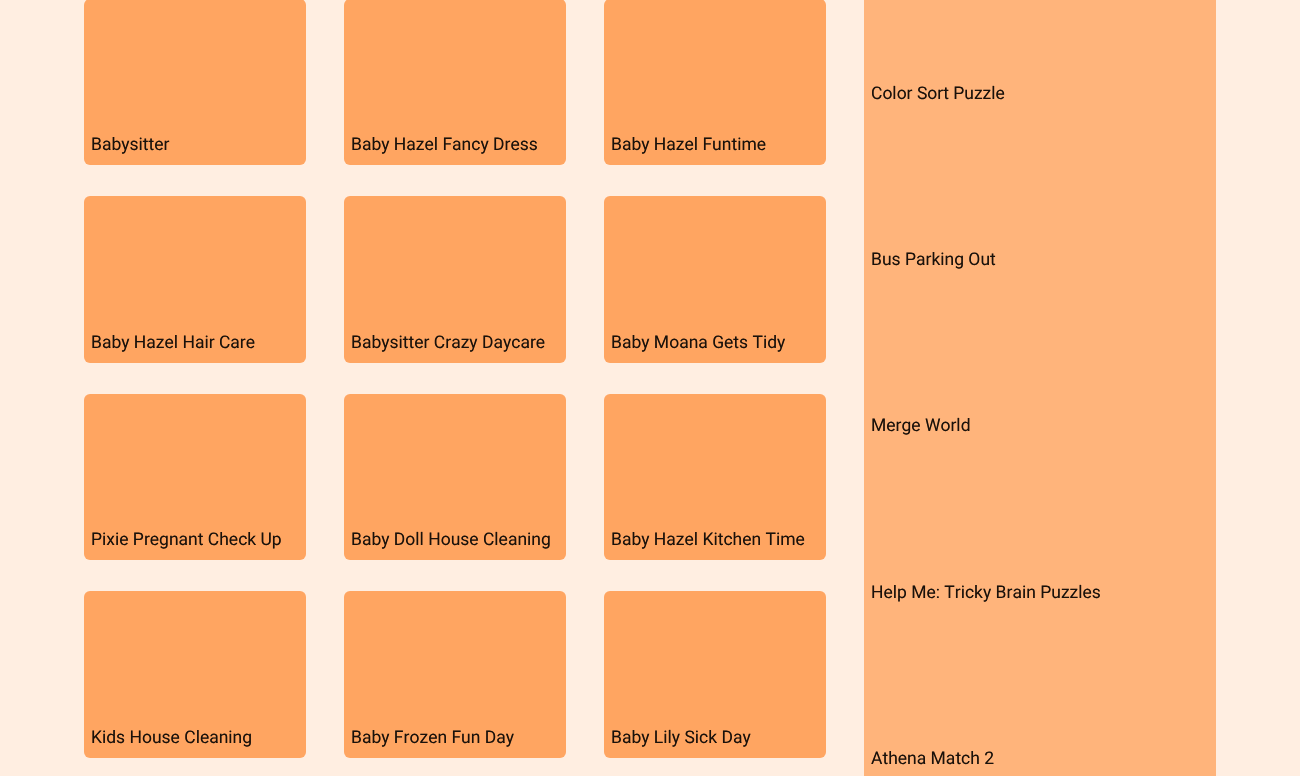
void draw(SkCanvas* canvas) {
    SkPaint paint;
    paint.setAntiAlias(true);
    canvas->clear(0xFFFFEEE1);
    paint.setColor(0xFFFFA561);
    canvas->drawRoundRect(SkRect::MakeXYWH(84, -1, 222, 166), 6, 6, paint);
    SkFont font1(fontMgr->matchFamilyStyle("Roboto", SkFontStyle::Normal()), 17.5f);
    font1.setSubpixel(true);
    paint.setColor(0xFF1A110A);
    canvas->drawString("Babysitter", 91, 150, font1, paint);
    paint.setColor(0xFFFFA561);
    canvas->drawRoundRect(SkRect::MakeXYWH(344, -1, 222, 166), 6, 6, paint);
    paint.setColor(0xFF1A110A);
    canvas->drawString("Baby Hazel Fancy Dress", 351, 150, font1, paint);
    paint.setColor(0xFFFFA561);
    canvas->drawRoundRect(SkRect::MakeXYWH(604, -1, 222, 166), 6, 6, paint);
    paint.setColor(0xFF1A110A);
    canvas->drawString("Baby Hazel Funtime", 611, 150, font1, paint);
    paint.setColor(0xFFFFA561);
    canvas->drawRoundRect(SkRect::MakeXYWH(84, 196, 222, 167), 6, 6, paint);
    paint.setColor(0xFF1A110A);
    canvas->drawString("Baby Hazel Hair Care", 91, 348, font1, paint);
    paint.setColor(0xFFFFA561);
    canvas->drawRoundRect(SkRect::MakeXYWH(344, 196, 222, 167), 6, 6, paint);
    paint.setColor(0xFF1A110A);
    canvas->drawString("Babysitter Crazy Daycare", 351, 348, font1, paint);
    paint.setColor(0xFFFFA561);
    canvas->drawRoundRect(SkRect::MakeXYWH(604, 196, 222, 167), 6, 6, paint);
    paint.setColor(0xFF1A110A);
    canvas->drawString("Baby Moana Gets Tidy", 611, 348, font1, paint);
    paint.setColor(0xFFFFA561);
    canvas->drawRoundRect(SkRect::MakeXYWH(84, 394, 222, 166), 6, 6, paint);
    paint.setColor(0xFF1A110A);
    canvas->drawString("Pixie Pregnant Check Up", 91, 545, font1, paint);
    paint.setColor(0xFFFFA561);
    canvas->drawRoundRect(SkRect::MakeXYWH(344, 394, 222, 166), 6, 6, paint);
    paint.setColor(0xFF1A110A);
    canvas->drawString("Baby Doll House Cleaning", 351, 545, font1, paint);
    paint.setColor(0xFFFFA561);
    canvas->drawRoundRect(SkRect::MakeXYWH(604, 394, 222, 166), 6, 6, paint);
    paint.setColor(0xFF1A110A);
    canvas->drawString("Baby Hazel Kitchen Time", 611, 545, font1, paint);
    paint.setColor(0xFFFFA561);
    canvas->drawRoundRect(SkRect::MakeXYWH(84, 591, 222, 167), 6, 6, paint);
    paint.setColor(0xFF1A110A);
    canvas->drawString("Kids House Cleaning", 91, 743, font1, paint);
    paint.setColor(0xFFFFA561);
    canvas->drawRoundRect(SkRect::MakeXYWH(344, 591, 222, 167), 6, 6, paint);
    paint.setColor(0xFF1A110A);
    canvas->drawString("Baby Frozen Fun Day", 351, 743, font1, paint);
    paint.setColor(0xFFFFA561);
    canvas->drawRoundRect(SkRect::MakeXYWH(604, 591, 222, 167), 6, 6, paint);
    paint.setColor(0xFF1A110A);
    canvas->drawString("Baby Lily Sick Day", 611, 743, font1, paint);
    paint.setColor(0xFFFFB47B);
    canvas->drawRect(SkRect::MakeXYWH(864, 0, 352, 776), paint);
    paint.setColor(0xFF1A110A);
    canvas->drawString("Color Sort Puzzle", 871, 99, font1, paint);
    canvas->drawString("Bus Parking Out", 871, 265, font1, paint);
    canvas->drawString("Merge World", 871, 431, font1, paint);
    canvas->drawString("Help Me: Tricky Brain Puzzles", 871, 598, font1, paint);
    canvas->drawString("Athena Match 2", 871, 764, font1, paint);
}
